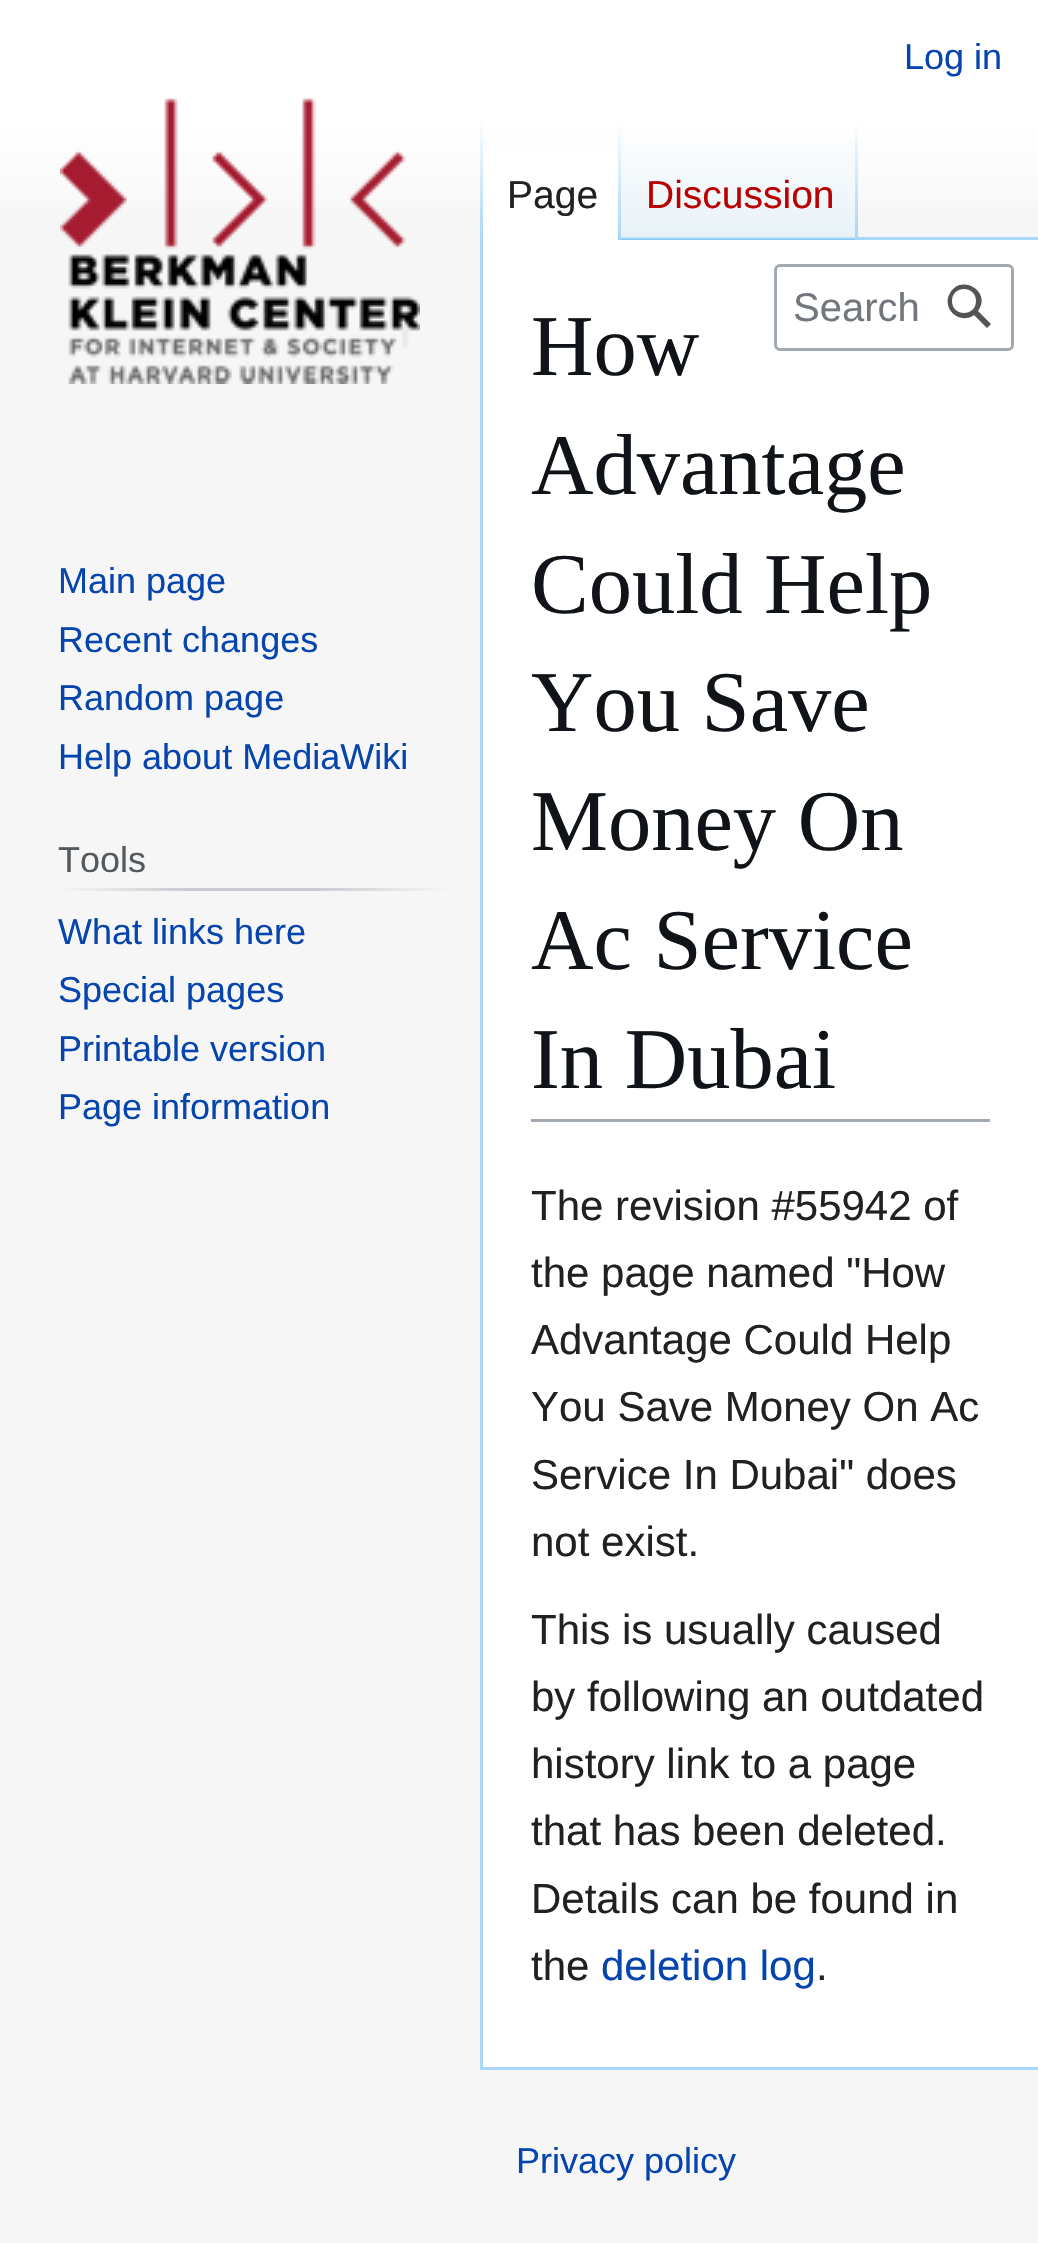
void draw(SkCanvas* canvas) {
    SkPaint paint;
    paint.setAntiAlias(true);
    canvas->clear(0xFFF6F6F6);
    {
        const SkColor colors[] = {0xFFFFFFFF, 0xFFF6F6F6};
        const float stops[] = {0.5f, 1};
        const SkPoint ends[] = {{519, 0}, {519, 240}};
        paint.setShader(SkGradientShader::MakeLinear(ends, colors, stops, 2, SkTileMode::kClamp));
        paint.setAlpha(255);
    }
    canvas->drawRect(SkRect::MakeXYWH(0, 0, 1038, 207), paint);
    SkFont font1(fontMgr->matchFamilyStyle("Liberation Sans", SkFontStyle::Normal()), 36);
    font1.setSubpixel(true);
    paint.setShader(nullptr);
    paint.setColor(0xFF0645AD);
    canvas->drawString("Log in", 904, 69, font1, paint);
    paint.setColor(0xFFA7D7F9);
    canvas->drawRect(SkRect::MakeXYWH(480, 2067, 558, 3), paint);
    canvas->drawRect(SkRect::MakeXYWH(480, 237, 3, 1833), paint);
    {
        const SkColor colors[] = {0x00A7D7F9, 0xFFA7D7F9};
        const float stops[] = {0, 1};
        const SkPoint ends[] = {{482, 120}, {482, 240}};
        paint.setShader(SkGradientShader::MakeLinear(ends, colors, stops, 2, SkTileMode::kClamp));
        paint.setAlpha(255);
    }
    canvas->drawRect(SkRect::MakeXYWH(480, 120, 3, 120), paint);
    paint.setShader(nullptr);
    paint.setColor(0xFFFFFFFF);
    canvas->drawRect(SkRect::MakeXYWH(483, 153, 135, 87), paint);
    {
        const SkColor colors[] = {0xFFFFFFFF, 0xFFA7D7F9};
        const float stops[] = {0, 1};
        const SkPoint ends[] = {{620, 120}, {620, 240}};
        paint.setShader(SkGradientShader::MakeLinear(ends, colors, stops, 2, SkTileMode::kClamp));
        paint.setAlpha(255);
    }
    canvas->drawRect(SkRect::MakeXYWH(618, 120, 3, 120), paint);
    SkFont font2(fontMgr->matchFamilyStyle("Liberation Sans", SkFontStyle::Normal()), 39);
    font2.setSubpixel(true);
    paint.setShader(nullptr);
    paint.setColor(0xFF202122);
    canvas->drawString("Page", 507, 208, font2, paint);
    {
        const SkColor colors[] = {0xFF77C1F6, 0xFFE8F2F8, 0xFFFFFFFF};
        const float stops[] = {0, 0.03f, 1};
        const SkPoint ends[] = {{740, 240}, {740, 120}};
        paint.setShader(SkGradientShader::MakeLinear(ends, colors, stops, 3, SkTileMode::kClamp));
        paint.setAlpha(255);
    }
    canvas->drawRect(SkRect::MakeXYWH(621, 138, 237, 102), paint);
    {
        const SkColor colors[] = {0x00A7D7F9, 0xFFA7D7F9};
        const float stops[] = {0, 1};
        const SkPoint ends[] = {{857, 120}, {857, 240}};
        paint.setShader(SkGradientShader::MakeLinear(ends, colors, stops, 2, SkTileMode::kClamp));
        paint.setAlpha(255);
    }
    canvas->drawRect(SkRect::MakeXYWH(855, 120, 3, 120), paint);
    paint.setShader(nullptr);
    paint.setColor(0xFFBA0000);
    canvas->drawString("Discussion", 646, 208, font2, paint);
    paint.setColor(0xFFFFFFFF);
    canvas->drawRect(SkRect::MakeXYWH(483, 240, 555, 1827), paint);
    paint.setStyle(SkPaint::kStroke_Style);
    paint.setStrokeWidth(3);
    paint.setColor(0xFFA2A9B1);
    canvas->drawRoundRect(SkRect::MakeXYWH(775.5f, 265.5f, 237, 84), 4.5f, 4.5f, paint);
    SkFont font3(fontMgr->matchFamilyStyle("Liberation Sans", SkFontStyle::Normal()), 40);
    font3.setSubpixel(true);
    paint.setStyle(SkPaint::kFill_Style);
    paint.setColor(0xFF72777D);
    canvas->drawString("Search", 793, 321, font3, paint);
    paint.setColor(0xFF545454);
    canvas->drawPath(SkPathBuilder().moveTo(974, 315).cubicTo(966, 321, 955, 318, 950, 310).cubicTo(947, 305, 947, 299, 949, 295).cubicTo(959, 272, 993, 291, 978, 311).lineTo(991, 324).lineTo(987, 328).close().moveTo(952, 301).cubicTo(952, 317, 976, 317, 976, 301).cubicTo(976, 285, 952, 285, 952, 301).detach(), paint);
    canvas->drawImageRect(SkImages::DeferredFromEncodedData(SkData::MakeFromFileName("img1.png")), SkRect::MakeXYWH(60, 98, 360, 286), SkSamplingOptions());
    paint.setColor(0xFF0645AD);
    canvas->drawString("Main page", 58, 593, font1, paint);
    canvas->drawString("Recent changes", 58, 652, font1, paint);
    canvas->drawString("Random page", 58, 710, font1, paint);
    canvas->drawString("Help about MediaWiki", 58, 769, font1, paint);
    {
        const SkColor colors[] = {0xFFF6F6F6, 0xFFC8CCD1, 0xFFC8CCD1, 0xFFF6F6F6};
        const float stops[] = {0, 0.33f, 0.66f, 1};
        const SkPoint ends[] = {{57, 890}, {450, 890}};
        paint.setShader(SkGradientShader::MakeLinear(ends, colors, stops, 4, SkTileMode::kClamp));
        paint.setAlpha(255);
    }
    canvas->drawRect(SkRect::MakeXYWH(57, 888, 393, 3), paint);
    paint.setShader(nullptr);
    paint.setColor(0xFF54595D);
    canvas->drawString("Tools", 58, 872, font1, paint);
    paint.setColor(0xFF0645AD);
    canvas->drawString("What links here", 58, 944, font1, paint);
    canvas->drawString("Special pages", 58, 1002, font1, paint);
    canvas->drawString("Printable version", 58, 1061, font1, paint);
    canvas->drawString("Page information", 58, 1119, font1, paint);
    paint.setColor(0xFFA7D7F9);
    canvas->drawRect(SkRect::MakeXYWH(858, 237, 180, 3), paint);
    paint.setColor(0xFFA2A9B1);
    canvas->drawRect(SkRect::MakeXYWH(531, 1119, 459, 3), paint);
    SkFont font4(fontMgr->matchFamilyStyle("Liberation Serif", SkFontStyle::Normal()), 86.5f);
    font4.setSubpixel(true);
    paint.setColor(0xFF101418);
    canvas->drawString("How", 531, 375, font4, paint);
    canvas->drawString("Advantage", 531, 494, font4, paint);
    canvas->drawString("Could Help", 531, 613, font4, paint);
    canvas->drawString("You Save", 531, 731, font4, paint);
    canvas->drawString("Money On", 531, 850, font4, paint);
    canvas->drawString("Ac Service", 531, 969, font4, paint);
    canvas->drawString("In Dubai", 531, 1088, font4, paint);
    SkFont font5(fontMgr->matchFamilyStyle("Liberation Sans", SkFontStyle::Normal()), 42);
    font5.setSubpixel(true);
    paint.setColor(0xFF202122);
    canvas->drawString("The revision #55942 of", 531, 1220, font5, paint);
    canvas->drawString("the page named \"How", 531, 1287, font5, paint);
    canvas->drawString("Advantage Could Help", 531, 1354, font5, paint);
    canvas->drawString("You Save Money On Ac", 531, 1421, font5, paint);
    canvas->drawString("Service In Dubai\" does", 531, 1489, font5, paint);
    canvas->drawString("not exist.", 531, 1556, font5, paint);
    canvas->drawString("This is usually caused", 531, 1644, font5, paint);
    canvas->drawString("by following an outdated", 531, 1711, font5, paint);
    canvas->drawString("history link to a page", 531, 1778, font5, paint);
    canvas->drawString("that has been deleted.", 531, 1845, font5, paint);
    canvas->drawString("Details can be found in", 531, 1913, font5, paint);
    canvas->drawString("the", 531, 1980, font5, paint);
    paint.setColor(0xFF0645AD);
    canvas->drawString("deletion log", 601, 1980, font5, paint);
    paint.setColor(0xFF202122);
    canvas->drawString(".", 816, 1980, font5, paint);
    paint.setColor(0xFF0645AD);
    canvas->drawString("Privacy policy", 516, 2173, font1, paint);
}
